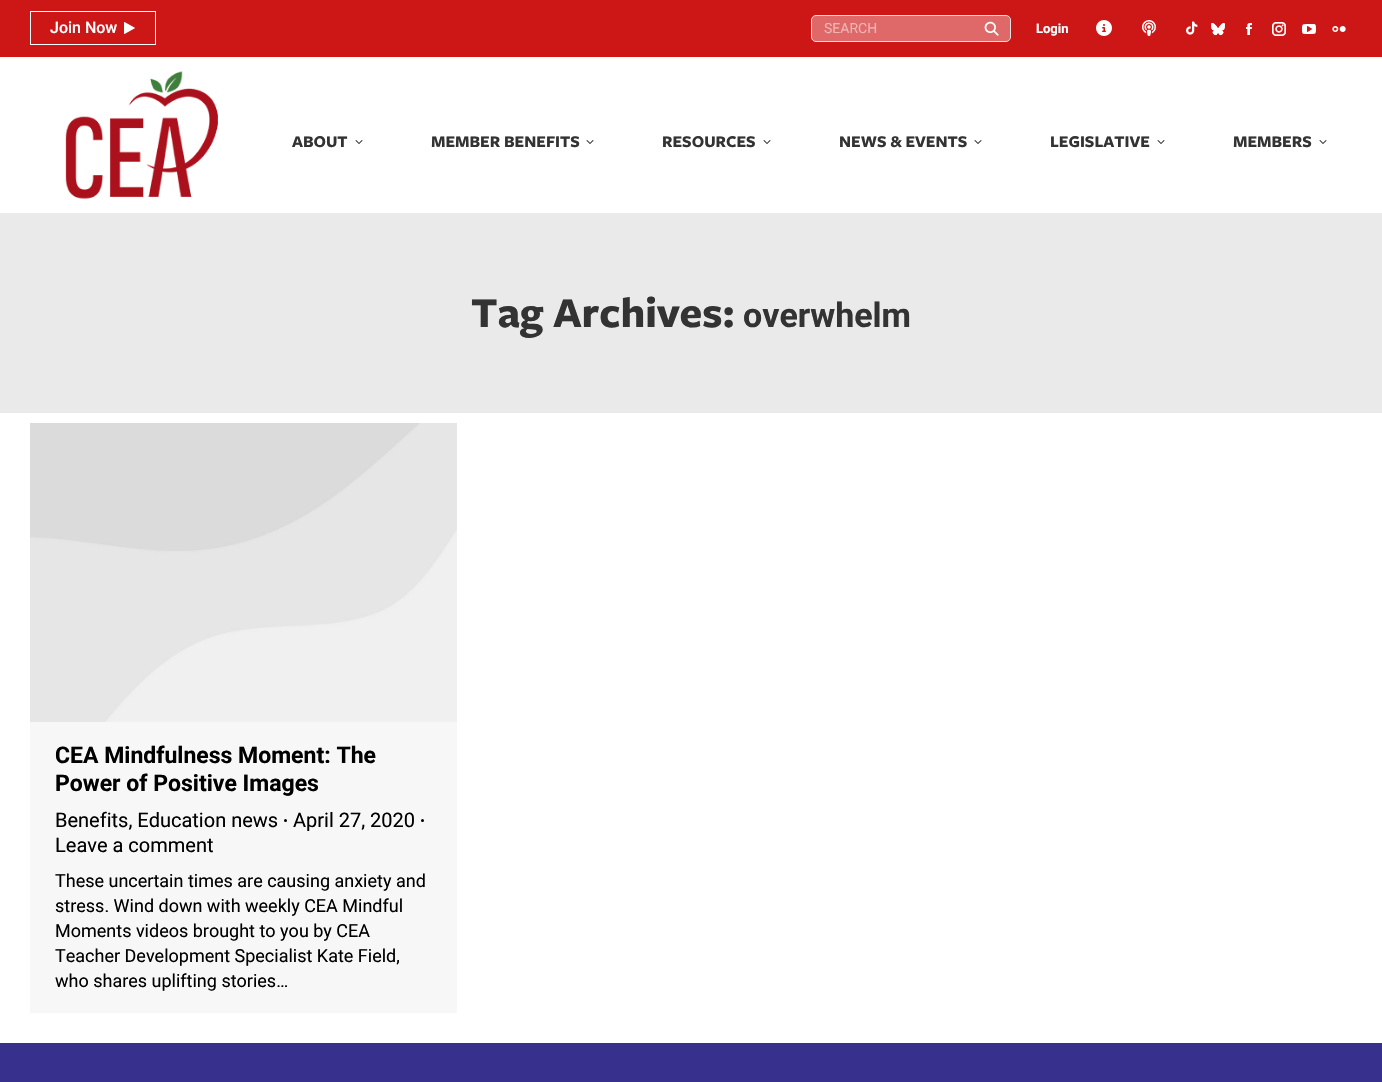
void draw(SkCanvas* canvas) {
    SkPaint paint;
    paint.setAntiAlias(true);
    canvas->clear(0xFFFFFFFF);
    paint.setColor(0xFFCD1717);
    canvas->drawRect(SkRect::MakeXYWH(0, 0, 1382, 57), paint);
    paint.setStyle(SkPaint::kStroke_Style);
    paint.setStrokeWidth(1);
    paint.setColor(0xFFFFFFFF);
    canvas->drawRect(SkRect::MakeXYWH(30.5f, 11.5f, 125, 33), paint);
    SkFont font1(fontMgr->matchFamilyStyle("Roboto", SkFontStyle(500, SkFontStyle::kNormal_Width, SkFontStyle::kUpright_Slant)), 16);
    font1.setSubpixel(true);
    paint.setStyle(SkPaint::kFill_Style);
    canvas->drawString("Join Now", 50, 33, font1, paint);
    canvas->drawImageRect(SkImages::DeferredFromEncodedData(SkData::MakeFromFileName("img1.png")), SkRect::MakeXYWH(124, 22, 11, 12), SkSamplingOptions());
    paint.setColor(0xFFDF6868);
    canvas->drawRoundRect(SkRect::MakeXYWH(811.5f, 15.5f, 199, 26), 4.5f, 4.5f, paint);
    paint.setStyle(SkPaint::kStroke_Style);
    paint.setColor(0xFFE2E2E2);
    canvas->drawRoundRect(SkRect::MakeXYWH(811.5f, 15.5f, 199, 26), 4.5f, 4.5f, paint);
    SkFont font2(fontMgr->matchFamilyStyle("Roboto", SkFontStyle::Normal()), 14);
    font2.setSubpixel(true);
    paint.setStyle(SkPaint::kFill_Style);
    paint.setColor(0xFFEFB4B4);
    canvas->drawString("SEARCH", 824, 33, font2, paint);
    canvas->drawImageRect(SkImages::DeferredFromEncodedData(SkData::MakeFromFileName("img2.png")), SkRect::MakeXYWH(984, 21, 15, 15), SkSamplingOptions());
    SkFont font3(fontMgr->matchFamilyStyle("Roboto", SkFontStyle::Bold()), 13);
    font3.setSubpixel(true);
    paint.setColor(0xFFFFFFFF);
    canvas->drawString("Login", 1036, 33, font3, paint);
    canvas->drawImageRect(SkImages::DeferredFromEncodedData(SkData::MakeFromFileName("img3.png")), SkRect::MakeXYWH(1096, 20, 16, 16), SkSamplingOptions());
    canvas->drawImageRect(SkImages::DeferredFromEncodedData(SkData::MakeFromFileName("img4.png")), SkRect::MakeXYWH(1142, 20, 14, 16), SkSamplingOptions());
    canvas->drawImageRect(SkImages::DeferredFromEncodedData(SkData::MakeFromFileName("img5.png")), SkRect::MakeXYWH(1186, 21, 12, 14), SkSamplingOptions());
    canvas->drawImageRect(SkImages::DeferredFromEncodedData(SkData::MakeFromFileName("img6.png")), SkRect::MakeXYWH(1211, 23, 14, 13), SkSamplingOptions());
    canvas->drawImageRect(SkImages::DeferredFromEncodedData(SkData::MakeFromFileName("img7.png")), SkRect::MakeXYWH(1246, 23, 6, 12), SkSamplingOptions());
    canvas->drawImageRect(SkImages::DeferredFromEncodedData(SkData::MakeFromFileName("img8.png")), SkRect::MakeXYWH(1272, 22, 14, 14), SkSamplingOptions());
    canvas->drawImageRect(SkImages::DeferredFromEncodedData(SkData::MakeFromFileName("img9.png")), SkRect::MakeXYWH(1302, 24, 14, 10), SkSamplingOptions());
    canvas->drawImageRect(SkImages::DeferredFromEncodedData(SkData::MakeFromFileName("img10.png")), SkRect::MakeXYWH(1332, 26, 14, 6), SkSamplingOptions());
    canvas->drawImageRect(SkImages::DeferredFromEncodedData(SkData::MakeFromFileName("img11.png")), SkRect::MakeXYWH(65, 71, 153, 128), SkSamplingOptions());
    SkFont font4(fontMgr->matchFamilyStyle("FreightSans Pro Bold", SkFontStyle::Bold()), 17);
    font4.setSubpixel(true);
    paint.setColor(0xFF333333);
    canvas->drawString("ABOUT", 292, 147, font4, paint);
    canvas->drawImageRect(SkImages::DeferredFromEncodedData(SkData::MakeFromFileName("img12.png")), SkRect::MakeXYWH(355, 140, 8, 4), SkSamplingOptions());
    canvas->drawString("MEMBER BENEFITS", 431, 147, font4, paint);
    canvas->drawImageRect(SkImages::DeferredFromEncodedData(SkData::MakeFromFileName("img12.png")), SkRect::MakeXYWH(586, 140, 8, 4), SkSamplingOptions());
    canvas->drawString("RESOURCES", 662, 147, font4, paint);
    canvas->drawImageRect(SkImages::DeferredFromEncodedData(SkData::MakeFromFileName("img12.png")), SkRect::MakeXYWH(763, 140, 8, 4), SkSamplingOptions());
    canvas->drawString("NEWS & EVENTS", 839, 147, font4, paint);
    canvas->drawImageRect(SkImages::DeferredFromEncodedData(SkData::MakeFromFileName("img12.png")), SkRect::MakeXYWH(974, 140, 8, 4), SkSamplingOptions());
    canvas->drawString("LEGISLATIVE", 1050, 147, font4, paint);
    canvas->drawImageRect(SkImages::DeferredFromEncodedData(SkData::MakeFromFileName("img12.png")), SkRect::MakeXYWH(1157, 140, 8, 4), SkSamplingOptions());
    canvas->drawString("MEMBERS", 1233, 147, font4, paint);
    canvas->drawImageRect(SkImages::DeferredFromEncodedData(SkData::MakeFromFileName("img12.png")), SkRect::MakeXYWH(1319, 140, 8, 4), SkSamplingOptions());
    paint.setColor(0xFFEAEAEA);
    canvas->drawRect(SkRect::MakeXYWH(0, 213, 1382, 200), paint);
    SkFont font5(fontMgr->matchFamilyStyle("FreightSans Pro Bold", SkFontStyle::Bold()), 44);
    font5.setSubpixel(true);
    paint.setColor(0xFF333333);
    canvas->drawString("Tag Archives:", 471, 327, font5, paint);
    SkFont font6(fontMgr->matchFamilyStyle("Roboto", SkFontStyle::Bold()), 34);
    font6.setSubpixel(true);
    canvas->drawString("overwhelm", 743, 327, font6, paint);
    paint.setColor(0xFFF7F7F7);
    canvas->drawRect(SkRect::MakeXYWH(30, 722, 427, 291), paint);
    canvas->drawImageRect(SkImages::DeferredFromEncodedData(SkData::MakeFromFileName("img13.png")), SkRect::MakeXYWH(30, 423, 427, 299), SkSamplingOptions());
    SkFont font7(fontMgr->matchFamilyStyle("Roboto", SkFontStyle::Bold()), 23);
    font7.setSubpixel(true);
    paint.setColor(0xFF000000);
    canvas->drawString("CEA Mindfulness Moment: The", 55, 763, font7, paint);
    canvas->drawString("Power of Positive Images", 55, 791, font7, paint);
    SkFont font8(fontMgr->matchFamilyStyle("Roboto", SkFontStyle::Normal()), 20);
    font8.setSubpixel(true);
    canvas->drawString("Benefits, Education news", 55, 827, font8, paint);
    canvas->drawCircle(285.5f, 820.5f, 1.5f, paint);
    canvas->drawString("April 27, 2020", 293, 827, font8, paint);
    canvas->drawCircle(422.5f, 820.5f, 1.5f, paint);
    canvas->drawString("Leave a comment", 55, 852, font8, paint);
    SkFont font9(fontMgr->matchFamilyStyle("Roboto", SkFontStyle::Normal()), 18);
    font9.setSubpixel(true);
    canvas->drawString("These uncertain times are causing anxiety and", 55, 887, font9, paint);
    canvas->drawString("stress. Wind down with weekly CEA Mindful", 55, 912, font9, paint);
    canvas->drawString("Moments videos brought to you by CEA", 55, 937, font9, paint);
    canvas->drawString("Teacher Development Specialist Kate Field,", 55, 962, font9, paint);
    canvas->drawString("who shares uplifting stories…", 55, 987, font9, paint);
    paint.setColor(0xFF37308D);
    canvas->drawRect(SkRect::MakeXYWH(0, 1043, 1382, 39), paint);
}
